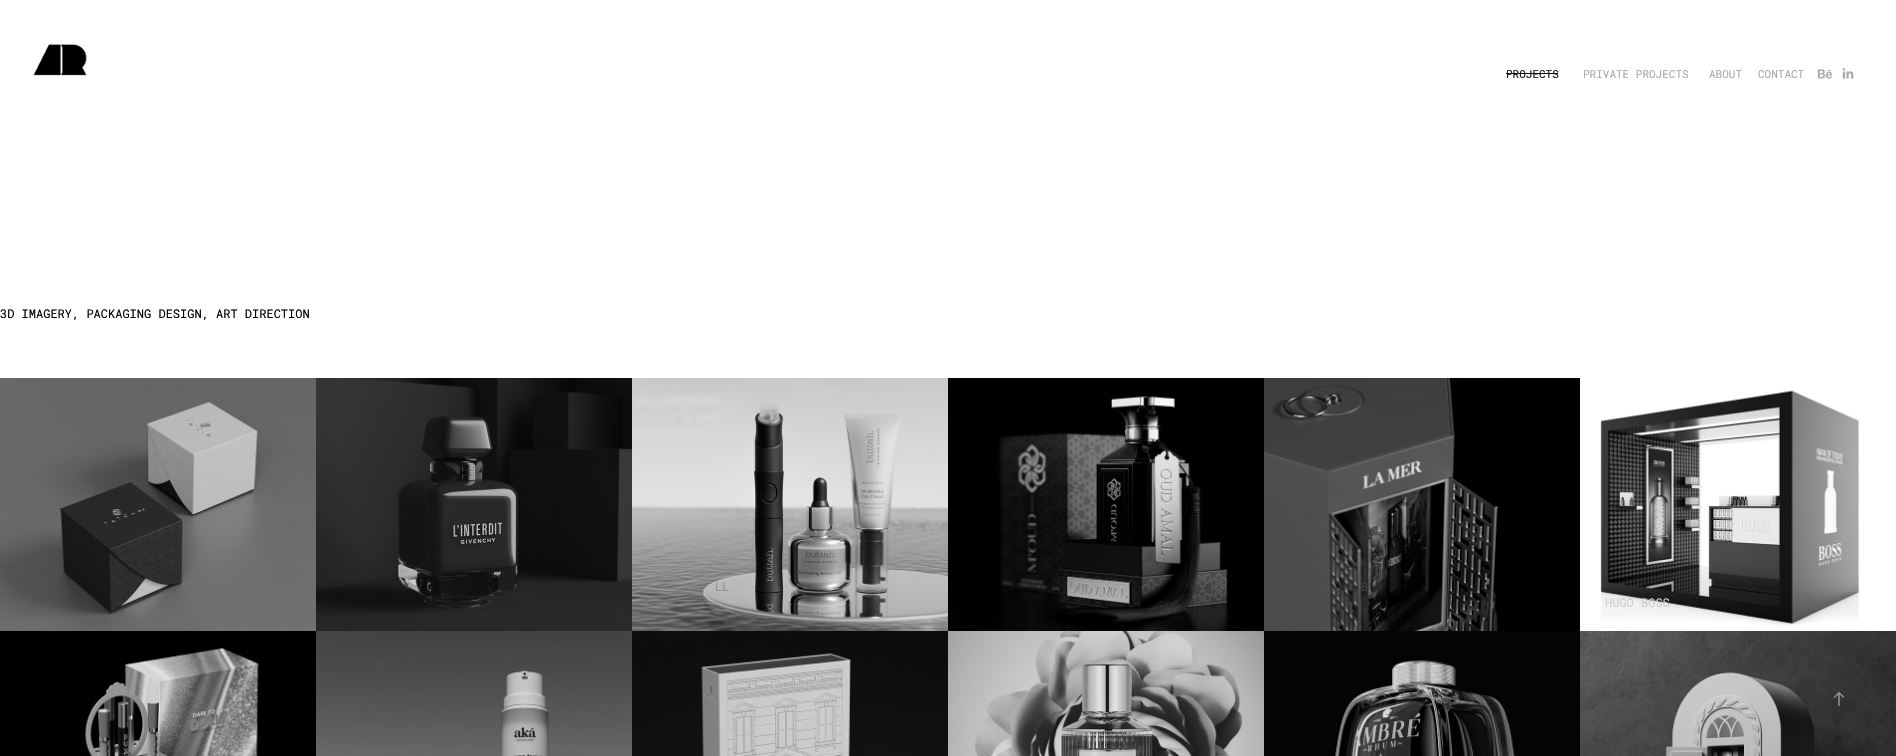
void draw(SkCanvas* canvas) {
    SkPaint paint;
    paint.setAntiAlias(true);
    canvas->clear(0xFFFFFFFF);
    canvas->drawImageRect(SkImages::DeferredFromEncodedData(SkData::MakeFromFileName("img1.png")), SkRect::MakeXYWH(33, 44, 54, 32), SkSamplingOptions());
    SkFont font1(fontMgr->matchFamilyStyle("Roboto Mono", SkFontStyle::Normal()), 11);
    font1.setSubpixel(true);
    paint.setColor(0xFF111111);
    canvas->drawString("PROJECTS", 1506, 78, font1, paint);
    canvas->drawRect(SkRect::MakeXYWH(1506, 73, 52, 1), paint);
    paint.setColor(0xFFAAAAAA);
    canvas->drawString("PRIVATE PROJECTS", 1583, 78, font1, paint);
    canvas->drawString("ABOUT", 1709, 78, font1, paint);
    canvas->drawString("CONTACT", 1758, 78, font1, paint);
    canvas->drawImageRect(SkImages::DeferredFromEncodedData(SkData::MakeFromFileName("img2.png")), SkRect::MakeXYWH(1817, 69, 16, 10), SkSamplingOptions());
    canvas->drawImageRect(SkImages::DeferredFromEncodedData(SkData::MakeFromFileName("img3.png")), SkRect::MakeXYWH(1842, 68, 12, 11), SkSamplingOptions());
    SkFont font2(fontMgr->matchFamilyStyle("Roboto Mono", SkFontStyle::Normal()), 12);
    font2.setSubpixel(true);
    paint.setColor(0xFF000000);
    canvas->drawString("3D IMAGERY, PACKAGING DESIGN, ART DIRECTION", 0, 318, font2, paint);
    canvas->drawImageRect(SkImages::DeferredFromEncodedData(SkData::MakeFromFileName("img4.png")), SkRect::MakeXYWH(0, 378, 316, 253), SkSamplingOptions());
    canvas->drawImageRect(SkImages::DeferredFromEncodedData(SkData::MakeFromFileName("img5.png")), SkRect::MakeXYWH(316, 378, 316, 253), SkSamplingOptions());
    canvas->drawImageRect(SkImages::DeferredFromEncodedData(SkData::MakeFromFileName("img6.png")), SkRect::MakeXYWH(632, 378, 316, 253), SkSamplingOptions());
    paint.setColor(0xFF929292);
    canvas->drawString("LL", 715, 591, font2, paint);
    canvas->drawImageRect(SkImages::DeferredFromEncodedData(SkData::MakeFromFileName("img7.png")), SkRect::MakeXYWH(948, 378, 316, 253), SkSamplingOptions());
    canvas->drawImageRect(SkImages::DeferredFromEncodedData(SkData::MakeFromFileName("img8.png")), SkRect::MakeXYWH(1264, 378, 316, 253), SkSamplingOptions());
    paint.setColor(0xFF3D3D3D);
    canvas->drawString("B", 1361, 591, font2, paint);
    canvas->drawImageRect(SkImages::DeferredFromEncodedData(SkData::MakeFromFileName("img9.png")), SkRect::MakeXYWH(1600, 390, 260, 237), SkSamplingOptions());
    paint.setColor(0xFFCDCDCD);
    canvas->drawString("HUGO BOSS", 1605, 607, font2, paint);
    canvas->drawImageRect(SkImages::DeferredFromEncodedData(SkData::MakeFromFileName("img10.png")), SkRect::MakeXYWH(0, 631, 316, 125), SkSamplingOptions());
    canvas->drawImageRect(SkImages::DeferredFromEncodedData(SkData::MakeFromFileName("img11.png")), SkRect::MakeXYWH(316, 631, 316, 125), SkSamplingOptions());
    canvas->drawImageRect(SkImages::DeferredFromEncodedData(SkData::MakeFromFileName("img12.png")), SkRect::MakeXYWH(632, 631, 316, 125), SkSamplingOptions());
    canvas->drawImageRect(SkImages::DeferredFromEncodedData(SkData::MakeFromFileName("img13.png")), SkRect::MakeXYWH(948, 631, 316, 125), SkSamplingOptions());
    canvas->drawImageRect(SkImages::DeferredFromEncodedData(SkData::MakeFromFileName("img14.png")), SkRect::MakeXYWH(1264, 631, 316, 125), SkSamplingOptions());
    canvas->drawImageRect(SkImages::DeferredFromEncodedData(SkData::MakeFromFileName("img15.png")), SkRect::MakeXYWH(1580, 631, 316, 125), SkSamplingOptions());
    canvas->drawImageRect(SkImages::DeferredFromEncodedData(SkData::MakeFromFileName("img16.png")), SkRect::MakeXYWH(1833, 692, 12, 15), SkSamplingOptions());
}
